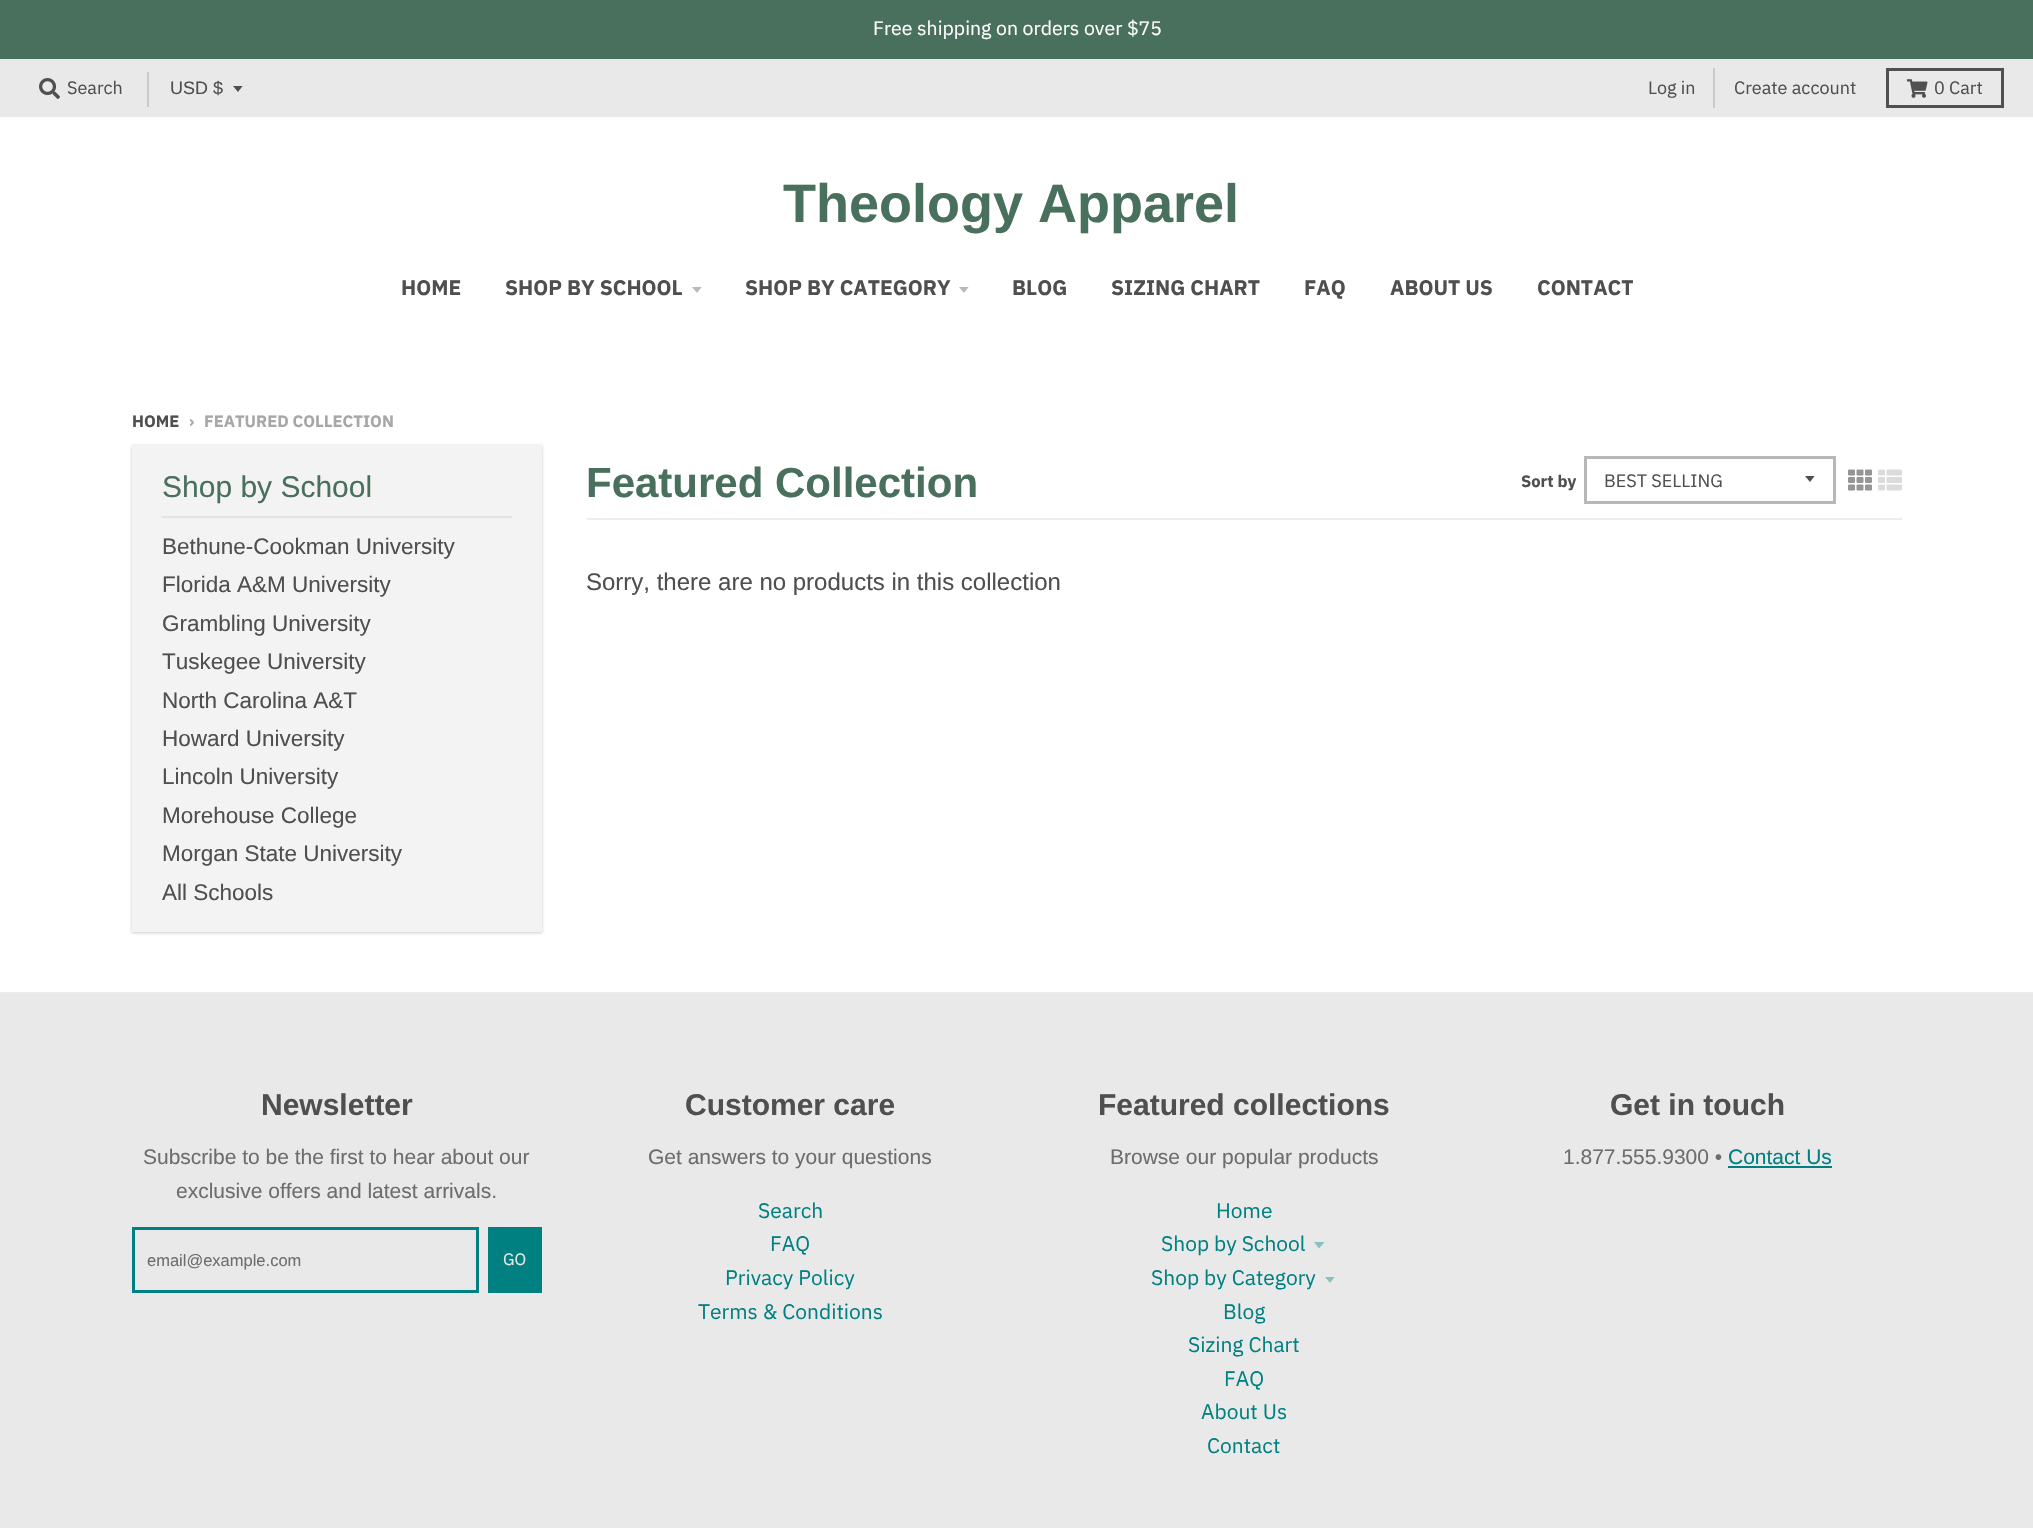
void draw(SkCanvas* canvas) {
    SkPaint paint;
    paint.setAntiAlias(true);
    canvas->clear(0xFFFFFFFF);
    paint.setColor(0xFF496F5D);
    canvas->drawRect(SkRect::MakeXYWH(0, 0, 2033, 59), paint);
    SkFont font1(fontMgr->matchFamilyStyle("IBM Plex Sans", SkFontStyle::Normal()), 19.5f);
    font1.setSubpixel(true);
    paint.setColor(0xFFFFFFFF);
    canvas->drawString("Free shipping on orders over $75", 873, 35, font1, paint);
    paint.setColor(0xFFE9E9E9);
    canvas->drawRect(SkRect::MakeXYWH(0, 59, 2033, 58), paint);
    canvas->drawImageRect(SkImages::DeferredFromEncodedData(SkData::MakeFromFileName("img1.png")), SkRect::MakeXYWH(39, 78, 21, 21), SkSamplingOptions());
    SkFont font2(fontMgr->matchFamilyStyle("IBM Plex Sans", SkFontStyle::Normal()), 18);
    font2.setSubpixel(true);
    paint.setColor(0xFF4F4F4F);
    canvas->drawString("Search", 67, 94, font2, paint);
    paint.setColor(0xFFCACACA);
    canvas->drawRect(SkRect::MakeXYWH(147, 72, 2, 35), paint);
    canvas->save();
    canvas->clipRect(SkRect::MakeXYWH(233, 86, 12, 7));
    paint.setColor(0xFF505050);
    canvas->drawPath(SkPathBuilder().moveTo(232.5f, 85.5f).lineTo(238, 92).lineTo(243, 85.5f).close().detach(), paint);
    canvas->restore();
    SkFont font3(fontMgr->matchFamilyStyle("Liberation Sans", SkFontStyle::Normal()), 18);
    font3.setSubpixel(true);
    paint.setColor(0xFF4F4F4F);
    canvas->drawString("USD $", 170, 94, font3, paint);
    paint.setColor(0xFFCACACA);
    canvas->drawRect(SkRect::MakeXYWH(1713, 68, 2, 40), paint);
    paint.setColor(0xFF4F4F4F);
    canvas->drawString("Log in", 1648, 94, font2, paint);
    canvas->drawString("Create account", 1734, 94, font2, paint);
    paint.setStyle(SkPaint::kStroke_Style);
    paint.setStrokeWidth(3);
    paint.setColor(0xFF505050);
    canvas->drawRect(SkRect::MakeXYWH(1887.5f, 69.5f, 115, 37), paint);
    canvas->drawImageRect(SkImages::DeferredFromEncodedData(SkData::MakeFromFileName("img2.png")), SkRect::MakeXYWH(1907, 79, 21, 19), SkSamplingOptions());
    paint.setStyle(SkPaint::kFill_Style);
    paint.setColor(0xFF4F4F4F);
    canvas->drawString("0 Cart", 1934, 94, font2, paint);
    SkFont font4(fontMgr->matchFamilyStyle("Liberation Sans", SkFontStyle::Bold()), 54);
    font4.setSubpixel(true);
    paint.setColor(0xFF496F5D);
    canvas->drawString("Theology Apparel", 783, 222, font4, paint);
    SkFont font5(fontMgr->matchFamilyStyle("IBM Plex Sans", SkFontStyle::Bold()), 21);
    font5.setSubpixel(true);
    paint.setColor(0xFF4F4F4F);
    canvas->drawString("HOME", 401, 295, font5, paint);
    canvas->drawString("SHOP BY SCHOOL", 505, 295, font5, paint);
    canvas->save();
    canvas->clipRect(SkRect::MakeXYWH(692, 287, 12, 7));
    paint.setColor(0xFFB9B9B9);
    canvas->drawPath(SkPathBuilder().moveTo(691.5f, 286.5f).lineTo(697, 293).lineTo(702, 286.5f).close().detach(), paint);
    canvas->restore();
    paint.setColor(0xFF4F4F4F);
    canvas->drawString("SHOP BY CATEGORY", 745, 295, font5, paint);
    canvas->save();
    canvas->clipRect(SkRect::MakeXYWH(959, 287, 12, 7));
    paint.setColor(0xFFB9B9B9);
    canvas->drawPath(SkPathBuilder().moveTo(958.5f, 286.5f).lineTo(964, 293).lineTo(969, 286.5f).close().detach(), paint);
    canvas->restore();
    paint.setColor(0xFF4F4F4F);
    canvas->drawString("BLOG", 1012, 295, font5, paint);
    canvas->drawString("SIZING CHART", 1111, 295, font5, paint);
    canvas->drawString("FAQ", 1304, 295, font5, paint);
    canvas->drawString("ABOUT US", 1390, 295, font5, paint);
    canvas->drawString("CONTACT", 1537, 295, font5, paint);
    paint.setColor(0xFFEDEDED);
    canvas->drawRect(SkRect::MakeXYWH(0, 992, 2033, 1), paint);
    SkFont font6(fontMgr->matchFamilyStyle("IBM Plex Sans", SkFontStyle::Bold()), 16.5f);
    font6.setSubpixel(true);
    paint.setColor(0xFF4F4F4F);
    canvas->drawString("HOME", 132, 427, font6, paint);
    paint.setColor(0xFFA7A7A7);
    canvas->drawString("›", 189, 427, font6, paint);
    canvas->drawString("FEATURED COLLECTION", 204, 427, font6, paint);
    paint.setColor(0x33000000);
    paint.setMaskFilter(SkMaskFilter::MakeBlur(kNormal_SkBlurStyle, 1.5f));
    canvas->drawRect(SkRect::MakeXYWH(132, 446, 410, 487), paint);
    paint.setMaskFilter(nullptr);
    paint.setColor(0xFFF3F3F3);
    canvas->drawRect(SkRect::MakeXYWH(132, 444, 410, 488), paint);
    paint.setColor(0xFFE2E5E4);
    canvas->drawRect(SkRect::MakeXYWH(162, 516, 350, 2), paint);
    SkFont font7(fontMgr->matchFamilyStyle("Liberation Sans", SkFontStyle::Normal()), 30);
    font7.setSubpixel(true);
    paint.setColor(0xFF496F5D);
    canvas->drawString("Shop by School", 162, 497, font7, paint);
    SkFont font8(fontMgr->matchFamilyStyle("Liberation Sans", SkFontStyle::Normal()), 22.5f);
    font8.setSubpixel(true);
    paint.setColor(0xFF4F4F4F);
    canvas->drawString("Bethune-Cookman University", 162, 554, font8, paint);
    canvas->drawString("Florida A&M University", 162, 592, font8, paint);
    canvas->drawString("Grambling University", 162, 631, font8, paint);
    canvas->drawString("Tuskegee University", 162, 669, font8, paint);
    canvas->drawString("North Carolina A&T", 162, 708, font8, paint);
    canvas->drawString("Howard University", 162, 746, font8, paint);
    canvas->drawString("Lincoln University", 162, 784, font8, paint);
    canvas->drawString("Morehouse College", 162, 823, font8, paint);
    canvas->drawString("Morgan State University", 162, 861, font8, paint);
    canvas->drawString("All Schools", 162, 900, font8, paint);
    paint.setColor(0xFFEDEDED);
    canvas->drawRect(SkRect::MakeXYWH(587, 518, 1315, 2), paint);
    SkFont font9(fontMgr->matchFamilyStyle("Liberation Sans", SkFontStyle::Bold()), 42);
    font9.setSubpixel(true);
    paint.setColor(0xFF496F5D);
    canvas->drawString("Featured Collection", 586, 497, font9, paint);
    paint.setColor(0xFF4F4F4F);
    canvas->drawString("Sort by", 1521, 487, font6, paint);
    canvas->save();
    canvas->clipRect(SkRect::MakeXYWH(1805, 476, 12, 7));
    canvas->drawPath(SkPathBuilder().moveTo(1804.5f, 475.5f).lineTo(1810, 482).lineTo(1815, 475.5f).close().detach(), paint);
    canvas->restore();
    paint.setStyle(SkPaint::kStroke_Style);
    paint.setColor(0xFFB8B8B8);
    canvas->drawRect(SkRect::MakeXYWH(1585.5f, 457.5f, 249, 45), paint);
    paint.setStyle(SkPaint::kFill_Style);
    paint.setColor(0xFF4F4F4F);
    canvas->drawString("BEST SELLING", 1604, 487, font2, paint);
    canvas->drawImageRect(SkImages::DeferredFromEncodedData(SkData::MakeFromFileName("img3.png")), SkRect::MakeXYWH(1848, 469, 24, 22), SkSamplingOptions());
    canvas->drawImageRect(SkImages::DeferredFromEncodedData(SkData::MakeFromFileName("img4.png")), SkRect::MakeXYWH(1878, 469, 24, 22), SkSamplingOptions());
    SkFont font10(fontMgr->matchFamilyStyle("Liberation Sans", SkFontStyle::Normal()), 24);
    font10.setSubpixel(true);
    canvas->drawString("Sorry, there are no products in this collection", 586, 590, font10, paint);
    paint.setColor(0xFFE9E9E9);
    canvas->drawRect(SkRect::MakeXYWH(0, 993, 2033, 535), paint);
    SkFont font11(fontMgr->matchFamilyStyle("Liberation Sans", SkFontStyle::Bold()), 30);
    font11.setSubpixel(true);
    paint.setColor(0xFF4F4F4F);
    canvas->drawString("Newsletter", 261, 1115, font11, paint);
    SkFont font12(fontMgr->matchFamilyStyle("Liberation Sans", SkFontStyle::Normal()), 21);
    font12.setSubpixel(true);
    paint.setColor(0xFF6D6D6D);
    canvas->drawString("Subscribe to be the first to hear about our", 143, 1164, font12, paint);
    canvas->drawString("exclusive offers and latest arrivals.", 176, 1198, font12, paint);
    paint.setStyle(SkPaint::kStroke_Style);
    paint.setColor(0xFF008080);
    canvas->drawRect(SkRect::MakeXYWH(133.5f, 1228.5f, 344, 63), paint);
    SkFont font13(fontMgr->matchFamilyStyle("Liberation Sans", SkFontStyle::Normal()), 16.5f);
    font13.setSubpixel(true);
    paint.setStyle(SkPaint::kFill_Style);
    paint.setColor(0xFF6D6D6D);
    canvas->drawString("email@example.com", 147, 1266, font13, paint);
    paint.setColor(0xFF008080);
    canvas->drawRect(SkRect::MakeXYWH(488, 1227, 54, 66), paint);
    SkFont font14(fontMgr->matchFamilyStyle("IBM Plex Sans", SkFontStyle::Normal()), 16.5f);
    font14.setSubpixel(true);
    paint.setColor(0xFFE9E9E9);
    canvas->drawString("GO", 503, 1265, font14, paint);
    paint.setColor(0xFF4F4F4F);
    canvas->drawString("Customer care", 685, 1115, font11, paint);
    paint.setColor(0xFF6D6D6D);
    canvas->drawString("Get answers to your questions", 648, 1164, font12, paint);
    SkFont font15(fontMgr->matchFamilyStyle("IBM Plex Sans", SkFontStyle::Normal()), 21);
    font15.setSubpixel(true);
    paint.setColor(0xFF008080);
    canvas->drawString("Search", 758, 1218, font15, paint);
    canvas->drawString("FAQ", 770, 1251, font15, paint);
    canvas->drawString("Privacy Policy", 725, 1285, font15, paint);
    canvas->drawString("Terms & Conditions", 698, 1319, font15, paint);
    paint.setColor(0xFF4F4F4F);
    canvas->drawString("Featured collections", 1098, 1115, font11, paint);
    paint.setColor(0xFF6D6D6D);
    canvas->drawString("Browse our popular products", 1110, 1164, font12, paint);
    paint.setColor(0xFF008080);
    canvas->drawString("Home", 1216, 1218, font15, paint);
    canvas->drawString("Shop by School", 1161, 1251, font15, paint);
    paint.setColor(0xFF8CBFBF);
    canvas->drawPath(SkPathBuilder().moveTo(1314, 1242).lineTo(1319, 1248.5f).lineTo(1324.5f, 1242).close().detach(), paint);
    paint.setColor(0xFF008080);
    canvas->drawString("Shop by Category", 1151, 1285, font15, paint);
    canvas->save();
    canvas->clipRect(SkRect::MakeXYWH(1325, 1277, 12, 7));
    paint.setColor(0xFF8CBFBF);
    canvas->drawPath(SkPathBuilder().moveTo(1324.5f, 1276.5f).lineTo(1330, 1283).lineTo(1335, 1276.5f).close().detach(), paint);
    canvas->restore();
    paint.setColor(0xFF008080);
    canvas->drawString("Blog", 1223, 1319, font15, paint);
    canvas->drawString("Sizing Chart", 1188, 1352, font15, paint);
    canvas->drawString("FAQ", 1224, 1386, font15, paint);
    canvas->drawString("About Us", 1201, 1419, font15, paint);
    canvas->drawString("Contact", 1207, 1453, font15, paint);
    paint.setColor(0xFF4F4F4F);
    canvas->drawString("Get in touch", 1610, 1115, font11, paint);
    paint.setColor(0xFF6D6D6D);
    canvas->drawString("1.877.555.9300 •", 1563, 1164, font12, paint);
    paint.setColor(0xFF008080);
    canvas->drawString("Contact Us", 1728, 1164, font12, paint);
    canvas->drawRect(SkRect::MakeXYWH(1728, 1166, 104, 2), paint);
}
